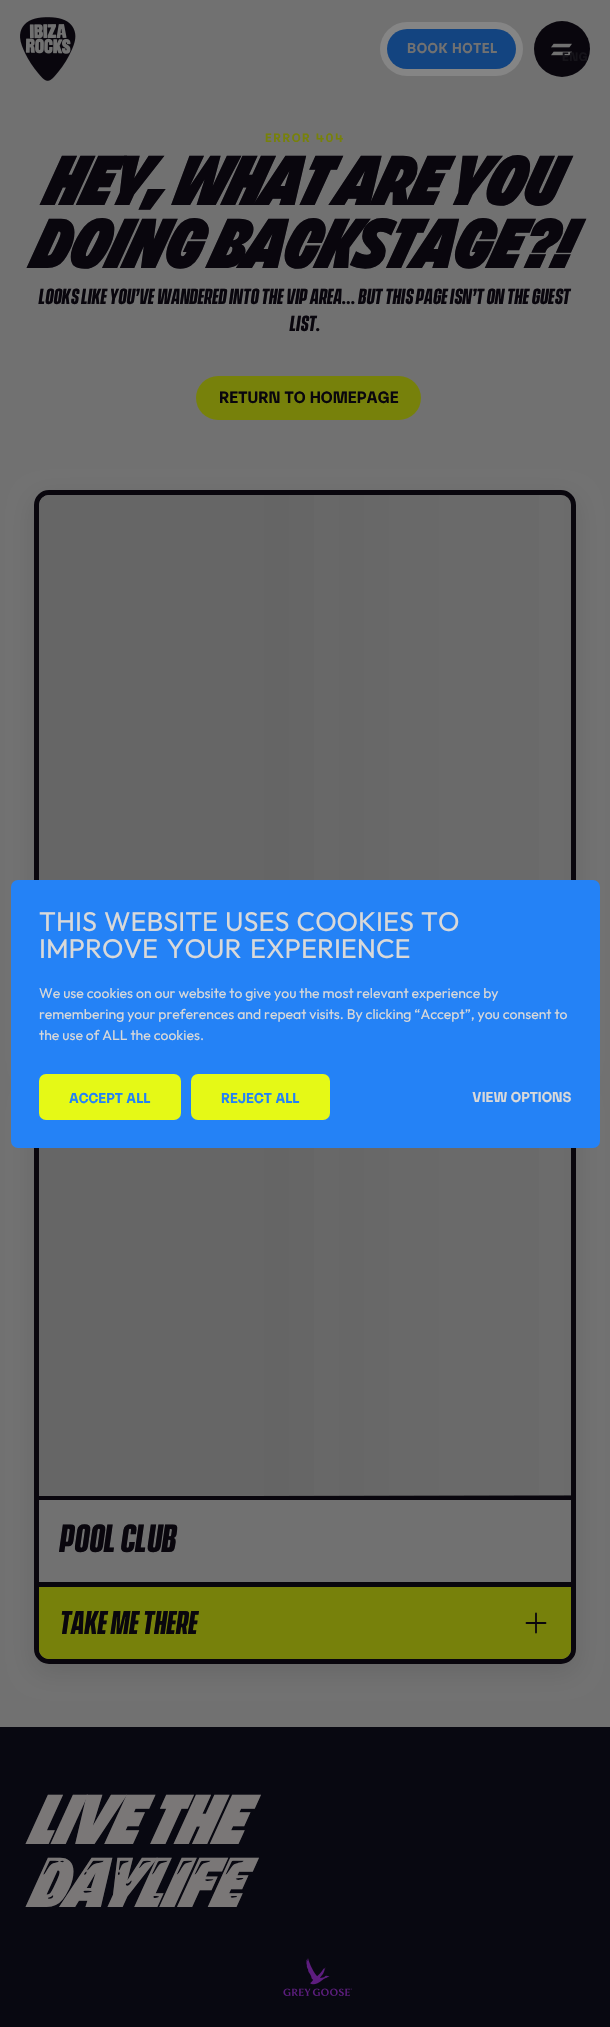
void draw(SkCanvas* canvas) {
    SkPaint paint;
    paint.setAntiAlias(true);
    auto spacedText = [&](const char* s, float x, float y, const SkFont& font, const SkPaint& ink, float letter, float word) {
        std::vector<SkGlyphID> glyphs(font.countText(s, strlen(s), SkTextEncoding::kUTF8));
        std::vector<float> xs(glyphs.size());
        font.textToGlyphs(s, strlen(s), SkTextEncoding::kUTF8, glyphs);
        font.getXPos(glyphs, xs, x);
        float extra = 0;
        for (size_t i = 0; i < glyphs.size(); i++) {
            xs[i] += extra;
            extra += letter + word * (glyphs[i] == font.unicharToGlyph(' '));
        }
        canvas->drawTextBlob(SkTextBlob::MakeFromPosHGlyphs(glyphs, xs, y, font), 0, 0, ink);
    };
    canvas->clear(0xFF717171);
    canvas->drawImageRect(SkImages::DeferredFromEncodedData(SkData::MakeFromFileName("img1.png")), SkRect::MakeXYWH(20, 17, 56, 64), SkSamplingOptions());
    paint.setColor(0xFF858585);
    canvas->drawRoundRect(SkRect::MakeXYWH(380, 22, 143, 54), 27, 27, paint);
    paint.setColor(0xFF134480);
    canvas->drawRoundRect(SkRect::MakeXYWH(387, 29, 129, 40), 20, 20, paint);
    SkFont font1(fontMgr->matchFamilyStyle("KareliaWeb", SkFontStyle::Bold()), 14);
    font1.setSubpixel(true);
    paint.setColor(0xFF717171);
    spacedText("BOOK HOTEL", 407, 53, font1, paint, 0.5f, 0);
    paint.setColor(0xFF09060D);
    canvas->drawCircle(562, 49, 28, paint);
    canvas->drawImageRect(SkImages::DeferredFromEncodedData(SkData::MakeFromFileName("img2.png")), SkRect::MakeXYWH(551, 43, 21, 13), SkSamplingOptions());
    SkFont font2(fontMgr->matchFamilyStyle("KareliaWeb", SkFontStyle::Bold()), 12);
    font2.setSubpixel(true);
    paint.setColor(0xFF151319);
    spacedText("ENG", 562, 61, font2, paint, 0.5f, 0);
    paint.setColor(0xFF77810B);
    spacedText("ERROR 404", 265, 142, font2, paint, 1.5f, 0);
    SkFont font3(fontMgr->matchFamilyStyle("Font", SkFontStyle::Normal()), 70.25f);
    font3.setSubpixel(true);
    paint.setColor(0xFF09060D);
    canvas->drawString("HEY, WHAT ARE YOU", 48, 205, font3, paint);
    canvas->drawString("DOING BACKSTAGE?!", 35, 268, font3, paint);
    SkFont font4(fontMgr->matchFamilyStyle("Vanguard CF", SkFontStyle::Bold()), 20);
    font4.setSubpixel(true);
    canvas->drawString("LOOKS LIKE YOU’VE WANDERED INTO THE VIP AREA… BUT THIS PAGE ISN’T ON THE GUEST", 39, 304, font4, paint);
    canvas->drawString("LIST.", 290, 331, font4, paint);
    paint.setColor(0xFF77810B);
    canvas->drawRoundRect(SkRect::MakeXYWH(196, 376, 225, 44), 22, 22, paint);
    SkFont font5(fontMgr->matchFamilyStyle("KareliaWeb", SkFontStyle::Bold()), 16);
    font5.setSubpixel(true);
    paint.setColor(0xFF09060D);
    canvas->drawString("RETURN TO HOMEPAGE", 219, 403, font5, paint);
    paint.setColor(0x1A09060D);
    paint.setMaskFilter(SkMaskFilter::MakeBlur(kNormal_SkBlurStyle, 12));
    canvas->drawRoundRect(SkRect::MakeXYWH(34, 498, 542, 573), 15, 15, paint);
    paint.setMaskFilter(nullptr);
    paint.setColor(0xFF717171);
    canvas->drawRoundRect(SkRect::MakeXYWH(36.5f, 492.5f, 537, 568), 12.5f, 12.5f, paint);
    paint.setStyle(SkPaint::kStroke_Style);
    paint.setStrokeWidth(5);
    paint.setColor(0xFF09060D);
    canvas->drawRoundRect(SkRect::MakeXYWH(36.5f, 492.5f, 537, 568), 12.5f, 12.5f, paint);
    paint.setStyle(SkPaint::kFill_Style);
    paint.setColor(0x1A09060D);
    paint.setMaskFilter(SkMaskFilter::MakeBlur(kNormal_SkBlurStyle, 12));
    canvas->drawRoundRect(SkRect::MakeXYWH(34, 1099, 542, 573), 15, 15, paint);
    paint.setMaskFilter(nullptr);
    paint.setColor(0xFF717171);
    canvas->drawRoundRect(SkRect::MakeXYWH(36.5f, 1093.5f, 537, 568), 12.5f, 12.5f, paint);
    paint.setStyle(SkPaint::kStroke_Style);
    paint.setColor(0xFF09060D);
    canvas->drawRoundRect(SkRect::MakeXYWH(36.5f, 1093.5f, 537, 568), 12.5f, 12.5f, paint);
    paint.setStyle(SkPaint::kFill_Style);
    paint.setColor(0xFF2482F6);
    canvas->drawRoundRect(SkRect::MakeXYWH(11, 880, 589, 268), 7, 7, paint);
    SkFont font6(fontMgr->matchFamilyStyle("Outfit", SkFontStyle::Normal()), 27);
    font6.setSubpixel(true);
    paint.setColor(0xFFD9D9D9);
    spacedText("THIS WEBSITE USES COOKIES TO", 39, 931, font6, paint, 0, 1.5f);
    spacedText("IMPROVE YOUR EXPERIENCE", 39, 958, font6, paint, 0, 3);
    SkFont font7(fontMgr->matchFamilyStyle("Outfit", SkFontStyle::Normal()), 14);
    font7.setSubpixel(true);
    canvas->drawString("We use cookies on our website to give you the most relevant experience by", 39, 998, font7, paint);
    canvas->drawString("remembering your preferences and repeat visits. By clicking “Accept”, you consent to", 39, 1019, font7, paint);
    canvas->drawString("the use of ALL the cookies.", 39, 1040, font7, paint);
    paint.setColor(0xFFE5F916);
    canvas->drawRoundRect(SkRect::MakeXYWH(39, 1074, 142, 46), 7, 7, paint);
    paint.setColor(0xFF2482F6);
    canvas->drawString("ACCEPT ALL", 69, 1103, font1, paint);
    paint.setColor(0xFFE5F916);
    canvas->drawRoundRect(SkRect::MakeXYWH(191, 1074, 139, 46), 7, 7, paint);
    paint.setColor(0xFF2482F6);
    canvas->drawString("REJECT ALL", 221, 1103, font1, paint);
    paint.setColor(0xFFD9D9D9);
    canvas->drawString("VIEW OPTIONS", 472, 1102, font1, paint);
    canvas->drawImageRect(SkImages::DeferredFromEncodedData(SkData::MakeFromFileName("img3.png")), SkRect::MakeXYWH(39, 495, 532, 385), SkSamplingOptions());
    paint.setColor(0xFF09060D);
    canvas->drawRect(SkRect::MakeXYWH(39, 1495, 532, 5), paint);
    canvas->drawImageRect(SkImages::DeferredFromEncodedData(SkData::MakeFromFileName("img4.png")), SkRect::MakeXYWH(39, 1148, 532, 348), SkSamplingOptions());
    SkFont font8(fontMgr->matchFamilyStyle("Vanguard CF", SkFontStyle::Bold()), 36);
    font8.setSubpixel(true);
    canvas->drawString("POOL CLUB", 60, 1552, font8, paint);
    paint.setColor(0xFF77810B);
    canvas->drawPath(SkPathBuilder().moveTo(39, 1582).lineTo(571, 1582).lineTo(571, 1649).cubicTo(571, 1654.5f, 566.5f, 1659, 561, 1659).lineTo(49, 1659).cubicTo(43.5f, 1659, 39, 1654.5f, 39, 1649).close().detach(), paint);
    paint.setColor(0xFF09060D);
    canvas->drawRect(SkRect::MakeXYWH(39, 1582, 532, 5), paint);
    SkFont font9(fontMgr->matchFamilyStyle("Vanguard CF", SkFontStyle::Bold()), 30);
    font9.setSubpixel(true);
    canvas->drawString("TAKE ME THERE", 60, 1634, font9, paint);
    paint.setStyle(SkPaint::kStroke_Style);
    paint.setStrokeWidth(1.8f);
    paint.setStrokeCap(SkPaint::kRound_Cap);
    paint.setStrokeJoin(SkPaint::kRound_Join);
    canvas->drawPath(SkPathBuilder().moveTo(536, 1632.5f).lineTo(536, 1613.5f).moveTo(526.5f, 1623).lineTo(545.5f, 1623).detach(), paint);
    paint.setStyle(SkPaint::kFill_Style);
    paint.setColor(0xFF080811);
    canvas->drawRect(SkRect::MakeXYWH(0, 1727, 610, 300), paint);
    paint.setColor(0xFF7A7777);
    canvas->drawString("LIVE THE", 34, 1844, font3, paint);
    SkFont font10(fontMgr->matchFamilyStyle("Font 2", SkFontStyle::Normal()), 70.25f);
    font10.setSubpixel(true);
    canvas->drawString("DAYLIFE", 34, 1907, font10, paint);
    canvas->drawImageRect(SkImages::DeferredFromEncodedData(SkData::MakeFromFileName("img5.png")), SkRect::MakeXYWH(283, 1958, 69, 38), SkSamplingOptions());
}
